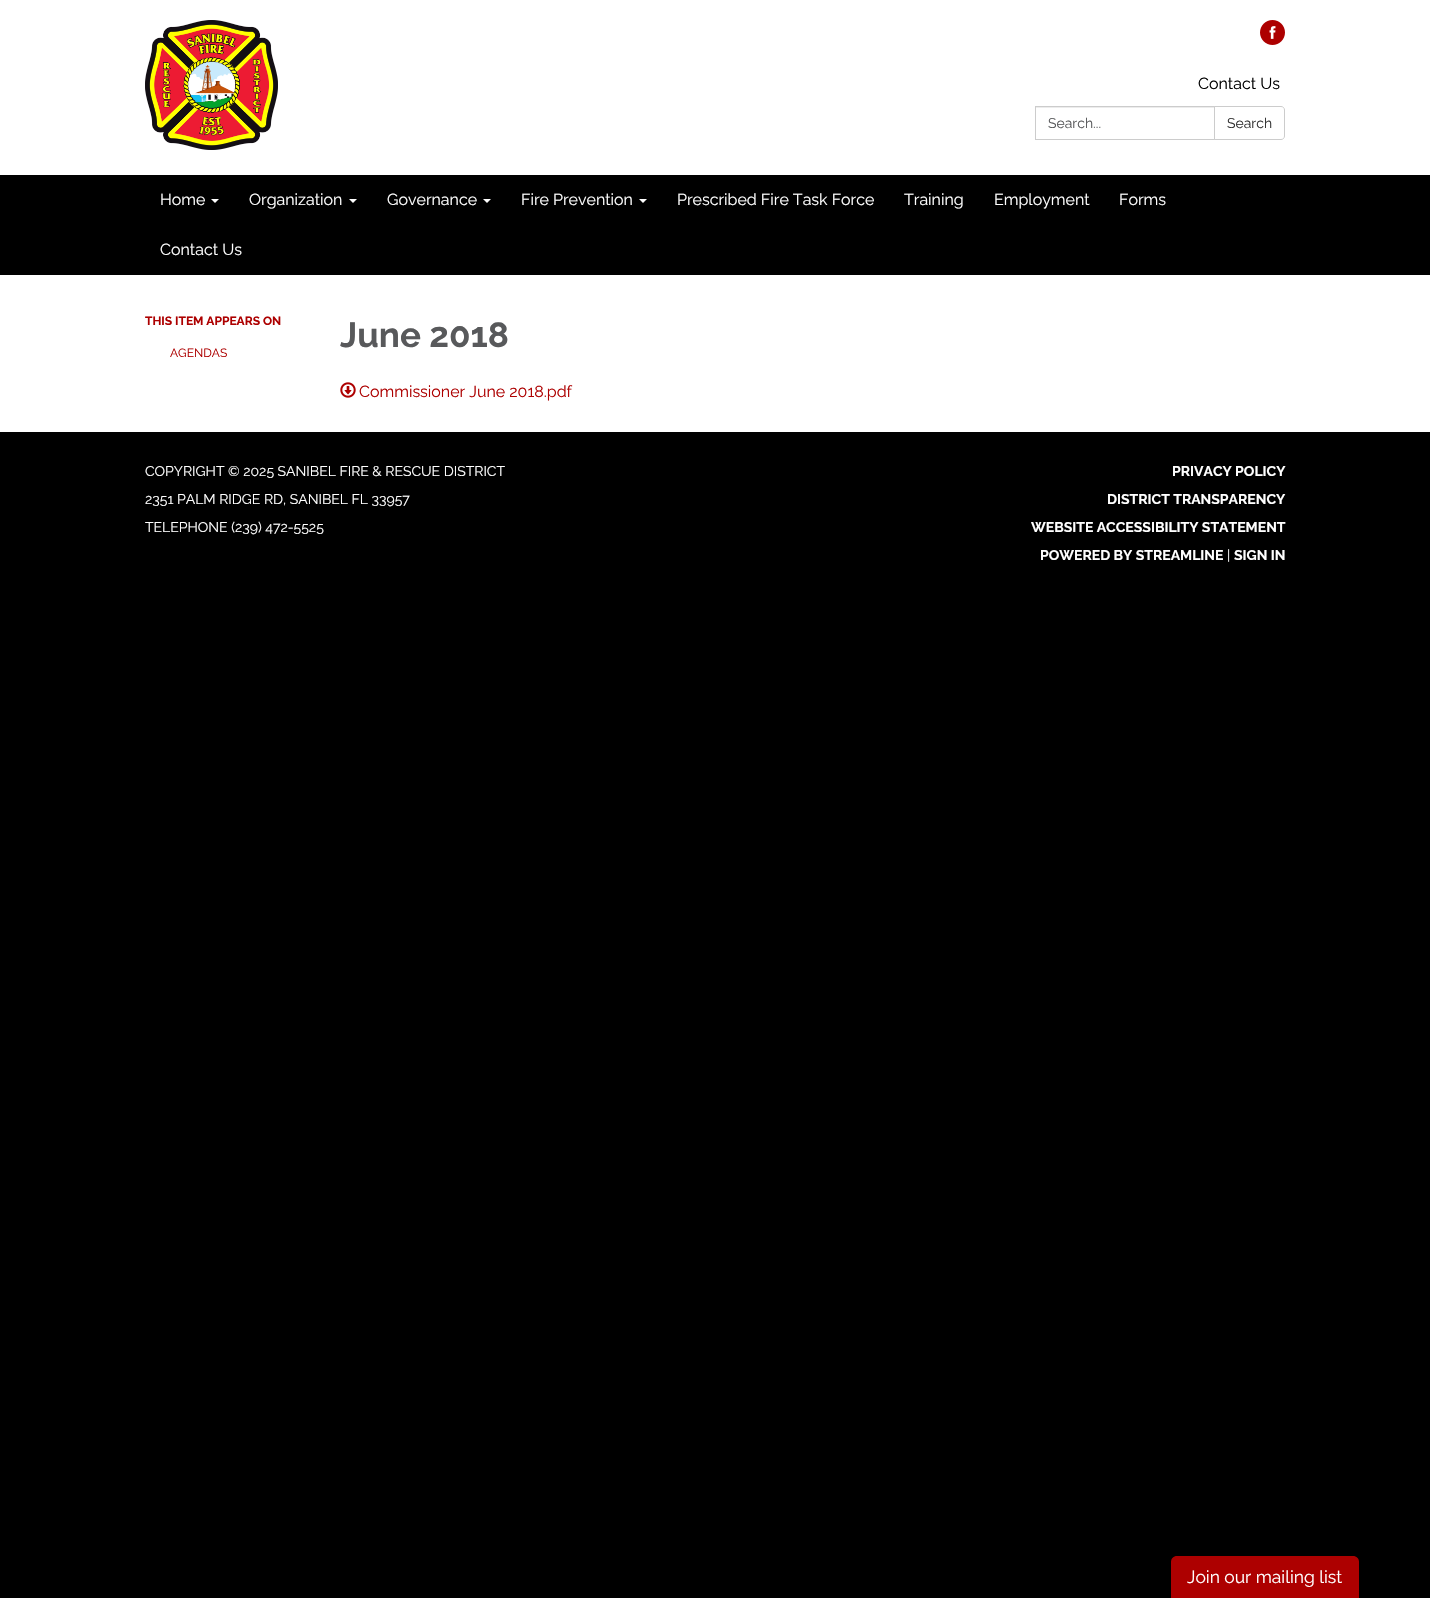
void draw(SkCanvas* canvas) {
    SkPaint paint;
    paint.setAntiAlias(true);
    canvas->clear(0xFF000000);
    paint.setColor(0xFFFFFFFF);
    canvas->drawRect(SkRect::MakeXYWH(0, 0, 1430, 175), paint);
    canvas->drawImageRect(SkImages::DeferredFromEncodedData(SkData::MakeFromFileName("img1.png")), SkRect::MakeXYWH(145, 20, 133, 130), SkSamplingOptions());
    canvas->drawImageRect(SkImages::DeferredFromEncodedData(SkData::MakeFromFileName("img2.png")), SkRect::MakeXYWH(1260, 20, 25, 25), SkSamplingOptions());
    SkFont font1(fontMgr->matchFamilyStyle("Raleway", SkFontStyle::Normal()), 16);
    font1.setSubpixel(true);
    paint.setColor(0xFF000000);
    canvas->drawString("Contact Us", 1198, 89, font1, paint);
    paint.setColor(0xFFECECEC);
    canvas->drawRect(SkRect::MakeXYWH(1036, 107, 178, 1), paint);
    paint.setStyle(SkPaint::kStroke_Style);
    paint.setStrokeWidth(1);
    paint.setColor(0xFFCCCCCC);
    canvas->drawRect(SkRect::MakeXYWH(1035.5f, 106.5f, 179, 33), paint);
    SkFont font2(fontMgr->matchFamilyStyle("Raleway", SkFontStyle::Normal()), 14);
    font2.setSubpixel(true);
    paint.setStyle(SkPaint::kFill_Style);
    paint.setColor(0xFF58595B);
    canvas->drawString("Search...", 1048, 128, font2, paint);
    paint.setColor(0xFFFFFFFF);
    canvas->drawPath(SkPathBuilder().moveTo(1214.5f, 106.5f).lineTo(1281, 106.5f).cubicTo(1283, 106.5f, 1284.5f, 108, 1284.5f, 110).lineTo(1284.5f, 136).cubicTo(1284.5f, 138, 1283, 139.5f, 1281, 139.5f).lineTo(1214.5f, 139.5f).close().detach(), paint);
    paint.setStyle(SkPaint::kStroke_Style);
    paint.setColor(0xFFCCCCCC);
    canvas->drawPath(SkPathBuilder().moveTo(1214.5f, 106.5f).lineTo(1281, 106.5f).cubicTo(1283, 106.5f, 1284.5f, 108, 1284.5f, 110).lineTo(1284.5f, 136).cubicTo(1284.5f, 138, 1283, 139.5f, 1281, 139.5f).lineTo(1214.5f, 139.5f).close().detach(), paint);
    paint.setStyle(SkPaint::kFill_Style);
    paint.setColor(0xFF333333);
    canvas->drawString("Search", 1227, 128, font2, paint);
    paint.setColor(0xFFFFFFFF);
    canvas->drawString("Home", 160, 205, font1, paint);
    canvas->drawPath(SkPathBuilder().moveTo(211, 199).lineTo(219, 199).lineTo(215, 203).close().detach(), paint);
    canvas->drawString("Organization", 249, 205, font1, paint);
    canvas->drawPath(SkPathBuilder().moveTo(349, 199).lineTo(357, 199).lineTo(353, 203).close().detach(), paint);
    canvas->drawString("Governance", 387, 205, font1, paint);
    canvas->drawPath(SkPathBuilder().moveTo(483, 199).lineTo(491, 199).lineTo(487, 203).close().detach(), paint);
    canvas->drawString("Fire Prevention", 521, 205, font1, paint);
    canvas->drawPath(SkPathBuilder().moveTo(639, 199).lineTo(647, 199).lineTo(643, 203).close().detach(), paint);
    canvas->drawString("Prescribed Fire Task Force", 677, 205, font1, paint);
    canvas->drawString("Training", 904, 205, font1, paint);
    canvas->drawString("Employment", 994, 205, font1, paint);
    canvas->drawString("Forms", 1119, 205, font1, paint);
    canvas->drawString("Contact Us", 160, 255, font1, paint);
    canvas->drawRect(SkRect::MakeXYWH(0, 275, 1430, 157), paint);
    SkFont font3(fontMgr->matchFamilyStyle("Raleway", SkFontStyle::Bold()), 12);
    font3.setSubpixel(true);
    paint.setColor(0xFFAD0000);
    canvas->drawString("THIS ITEM APPEARS ON", 145, 325, font3, paint);
    SkFont font4(fontMgr->matchFamilyStyle("Raleway", SkFontStyle::Normal()), 12);
    font4.setSubpixel(true);
    canvas->drawString("AGENDAS", 170, 357, font4, paint);
    SkFont font5(fontMgr->matchFamilyStyle("Raleway", SkFontStyle::Bold()), 35);
    font5.setSubpixel(true);
    paint.setColor(0xFF58595B);
    canvas->drawString("June 2018", 340, 347, font5, paint);
    canvas->drawImageRect(SkImages::DeferredFromEncodedData(SkData::MakeFromFileName("img3.png")), SkRect::MakeXYWH(340, 382, 16, 16), SkSamplingOptions());
    paint.setColor(0xFFAD0000);
    canvas->drawString("Commissioner June 2018.pdf", 359, 397, font1, paint);
    paint.setColor(0xFFFFFFFF);
    canvas->drawString("COPYRIGHT © 2025 SANIBEL FIRE & RESCUE DISTRICT", 145, 476, font2, paint);
    canvas->drawString("2351 PALM RIDGE RD, SANIBEL FL 33957", 145, 504, font2, paint);
    canvas->drawString("TELEPHONE (239) 472-5525", 145, 532, font2, paint);
    SkFont font6(fontMgr->matchFamilyStyle("Raleway", SkFontStyle::Bold()), 14);
    font6.setSubpixel(true);
    canvas->drawString("PRIVACY POLICY", 1172, 476, font6, paint);
    canvas->drawString("DISTRICT TRANSPARENCY", 1107, 504, font6, paint);
    canvas->drawString("WEBSITE ACCESSIBILITY STATEMENT", 1031, 532, font6, paint);
    canvas->drawString("POWERED BY STREAMLINE", 1040, 560, font6, paint);
    canvas->drawString("|", 1227, 560, font2, paint);
    canvas->drawString("SIGN IN", 1234, 560, font6, paint);
    paint.setColor(0xFFAD0000);
    canvas->drawPath(SkPathBuilder().moveTo(1177, 1556).lineTo(1353, 1556).cubicTo(1356.5f, 1556, 1359, 1558.5f, 1359, 1562).lineTo(1359, 1598).lineTo(1171, 1598).lineTo(1171, 1562).cubicTo(1171, 1558.5f, 1173.5f, 1556, 1177, 1556).close().detach(), paint);
    SkFont font7(fontMgr->matchFamilyStyle("Raleway", SkFontStyle::Normal()), 17.5f);
    font7.setSubpixel(true);
    paint.setColor(0xFFFFFFFF);
    canvas->drawString("Join our mailing list", 1187, 1583, font7, paint);
}
